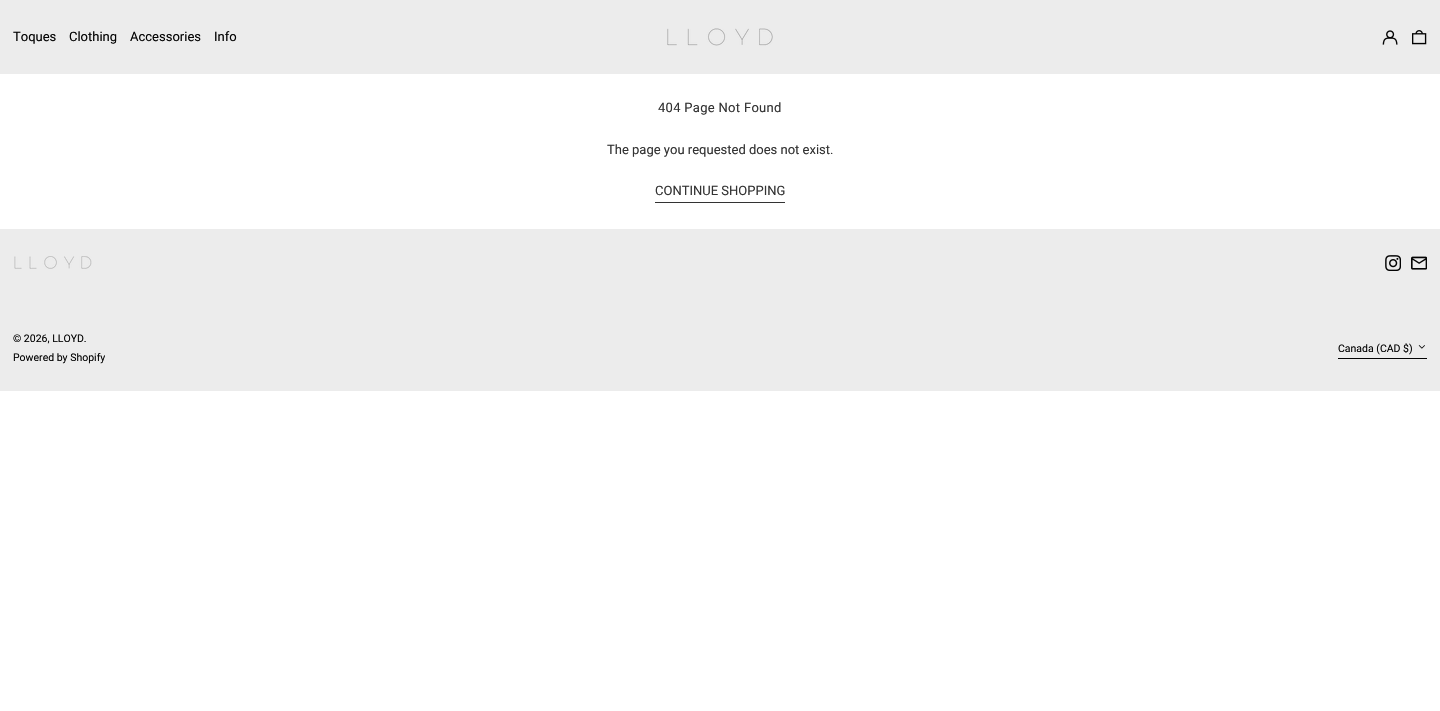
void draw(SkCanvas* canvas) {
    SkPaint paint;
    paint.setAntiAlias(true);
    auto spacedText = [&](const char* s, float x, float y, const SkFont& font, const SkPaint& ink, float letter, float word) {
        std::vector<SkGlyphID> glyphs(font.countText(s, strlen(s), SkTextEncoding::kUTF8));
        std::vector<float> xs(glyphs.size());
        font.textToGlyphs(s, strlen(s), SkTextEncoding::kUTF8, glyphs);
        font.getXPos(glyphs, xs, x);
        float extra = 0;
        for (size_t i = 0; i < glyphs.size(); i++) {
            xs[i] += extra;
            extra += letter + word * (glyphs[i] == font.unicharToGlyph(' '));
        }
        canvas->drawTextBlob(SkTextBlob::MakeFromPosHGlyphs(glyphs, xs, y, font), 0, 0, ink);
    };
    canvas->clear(0xFFFFFFFF);
    paint.setColor(0xFFECECEC);
    canvas->drawRect(SkRect::MakeXYWH(0, 0, 1440, 74), paint);
    SkFont font1(fontMgr->matchFamilyStyle("Roboto", SkFontStyle::Normal()), 13);
    font1.setSubpixel(true);
    paint.setColor(0xFF030303);
    canvas->drawString("Toques", 13, 41, font1, paint);
    canvas->drawString("Clothing", 69, 41, font1, paint);
    canvas->drawString("Accessories", 130, 41, font1, paint);
    canvas->drawString("Info", 214, 41, font1, paint);
    canvas->drawImageRect(SkImages::DeferredFromEncodedData(SkData::MakeFromFileName("img1.png")), SkRect::MakeXYWH(667, 28, 106, 18), SkSamplingOptions());
    canvas->drawImageRect(SkImages::DeferredFromEncodedData(SkData::MakeFromFileName("img2.png")), SkRect::MakeXYWH(1382, 30, 16, 15), SkSamplingOptions());
    canvas->drawImageRect(SkImages::DeferredFromEncodedData(SkData::MakeFromFileName("img3.png")), SkRect::MakeXYWH(1412, 30, 15, 15), SkSamplingOptions());
    paint.setColor(0xFF333333);
    spacedText("404 Page Not Found", 658, 112, font1, paint, 0.3f, 0);
    canvas->drawString("The page you requested does not exist.", 607, 154, font1, paint);
    canvas->drawRect(SkRect::MakeXYWH(655, 202, 130, 1), paint);
    canvas->drawString("CONTINUE SHOPPING", 655, 195, font1, paint);
    paint.setColor(0xFFECECEC);
    canvas->drawRect(SkRect::MakeXYWH(0, 307, 1440, 84), paint);
    canvas->drawRect(SkRect::MakeXYWH(0, 229, 1440, 78), paint);
    canvas->drawImageRect(SkImages::DeferredFromEncodedData(SkData::MakeFromFileName("img4.png")), SkRect::MakeXYWH(14, 256, 78, 13), SkSamplingOptions());
    canvas->drawImageRect(SkImages::DeferredFromEncodedData(SkData::MakeFromFileName("img5.png")), SkRect::MakeXYWH(1385, 255, 16, 16), SkSamplingOptions());
    canvas->drawImageRect(SkImages::DeferredFromEncodedData(SkData::MakeFromFileName("img6.png")), SkRect::MakeXYWH(1411, 256, 16, 14), SkSamplingOptions());
    SkFont font2(fontMgr->matchFamilyStyle("Roboto", SkFontStyle::Normal()), 10.5f);
    font2.setSubpixel(true);
    paint.setColor(0xFF030303);
    canvas->drawString("© 2026, LLOYD.", 13, 342, font2, paint);
    canvas->drawString("Powered by Shopify", 13, 361, font2, paint);
    canvas->drawRect(SkRect::MakeXYWH(1338, 358, 89, 1), paint);
    canvas->drawString("Canada (CAD $)", 1338, 352, font2, paint);
    canvas->drawImageRect(SkImages::DeferredFromEncodedData(SkData::MakeFromFileName("img7.png")), SkRect::MakeXYWH(1418, 345, 7, 4), SkSamplingOptions());
}
